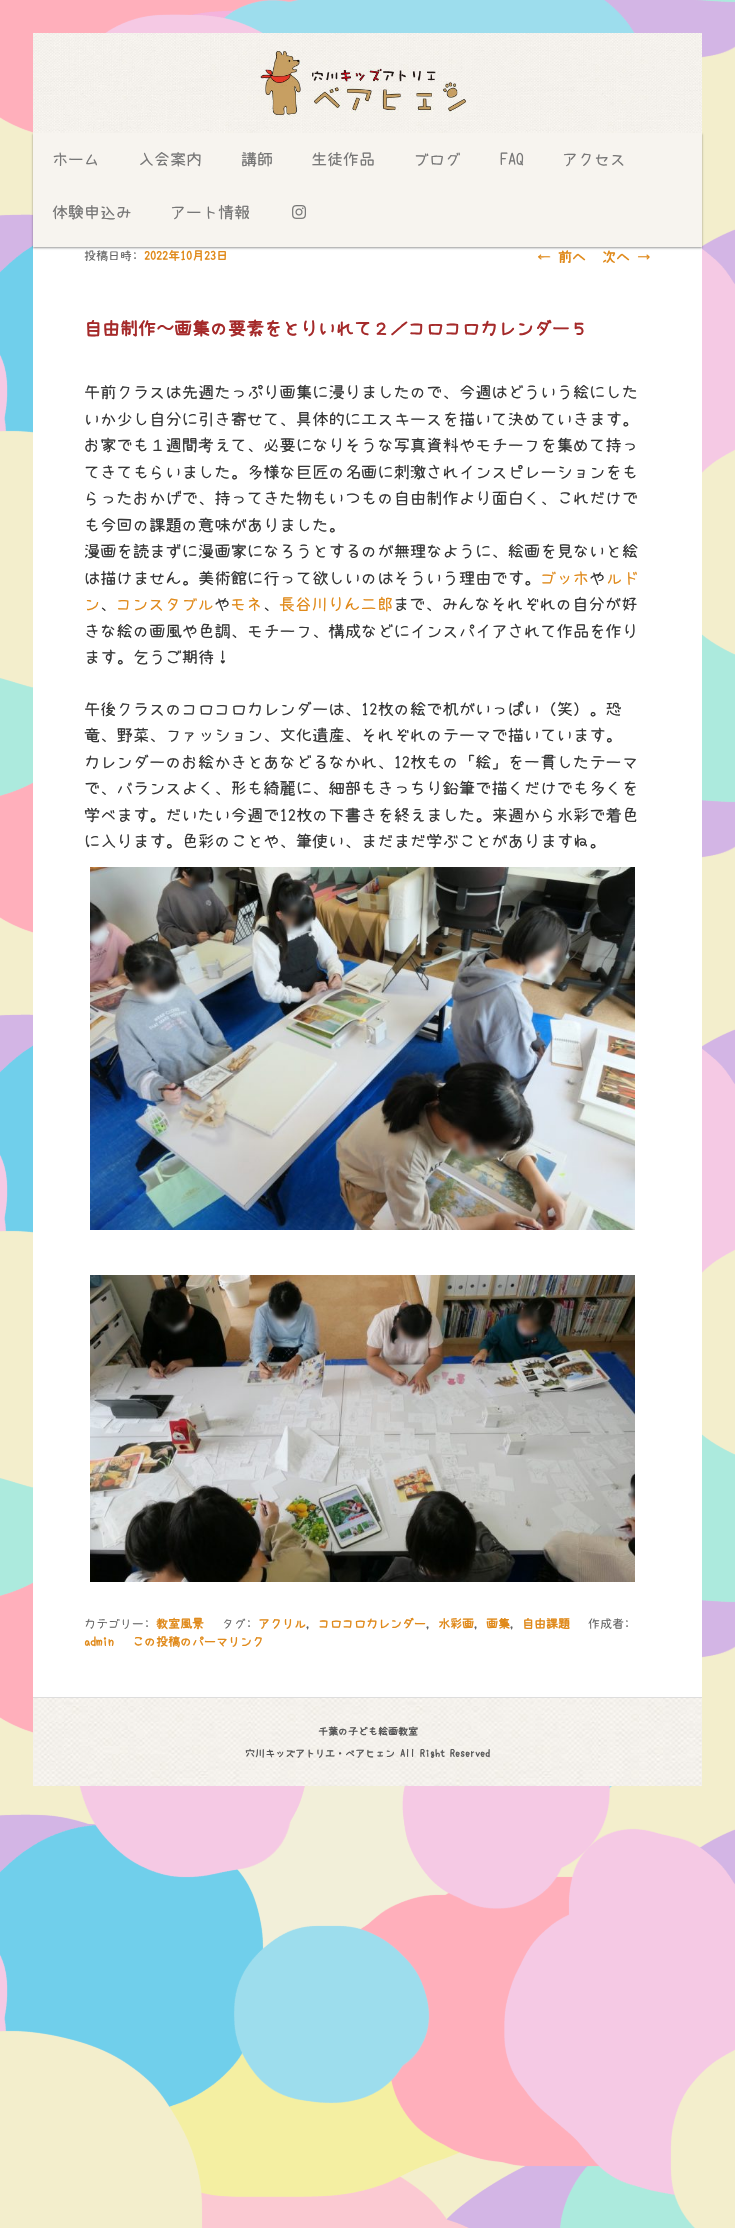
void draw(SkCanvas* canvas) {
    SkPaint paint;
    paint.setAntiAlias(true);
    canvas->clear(0xFFFFFFFF);
    canvas->drawImageRect(SkImages::DeferredFromEncodedData(SkData::MakeFromFileName("img1.png")), SkRect::MakeXYWH(0, 0, 735, 2228), SkSamplingOptions());
    paint.setColor(0xFFFFFFFF);
    canvas->drawRect(SkRect::MakeXYWH(33, 247, 669, 1450), paint);
    paint.setColor(0x66000000);
    paint.setMaskFilter(SkMaskFilter::MakeBlur(kNormal_SkBlurStyle, 1));
    canvas->drawRect(SkRect::MakeXYWH(33, 134, 669, 114), paint);
    paint.setMaskFilter(nullptr);
    canvas->drawImageRect(SkImages::DeferredFromEncodedData(SkData::MakeFromFileName("img2.png")), SkRect::MakeXYWH(33, 33, 669, 100), SkSamplingOptions());
    paint.setColor(0xFFF7F4EF);
    canvas->drawRect(SkRect::MakeXYWH(33, 133, 669, 114), paint);
    SkFont font1(fontMgr->matchFamilyStyle("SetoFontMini", SkFontStyle::Normal()), 16);
    font1.setSubpixel(true);
    paint.setColor(0xFF777777);
    canvas->drawString("ホーム", 52, 165, font1, paint);
    canvas->drawString("入会案内", 138, 165, font1, paint);
    canvas->drawString("講師", 241, 165, font1, paint);
    canvas->drawString("生徒作品", 311, 165, font1, paint);
    canvas->drawString("ブログ", 413, 165, font1, paint);
    canvas->drawString("FAQ", 500, 165, font1, paint);
    canvas->drawString("アクセス", 562, 165, font1, paint);
    canvas->drawString("体験申込み", 52, 218, font1, paint);
    canvas->drawString("アート情報", 170, 218, font1, paint);
    canvas->drawImageRect(SkImages::DeferredFromEncodedData(SkData::MakeFromFileName("img3.png")), SkRect::MakeXYWH(292, 205, 14, 14), SkSamplingOptions());
    SkFont font2(fontMgr->matchFamilyStyle("SetoFontMini", SkFontStyle::Normal()), 12);
    font2.setSubpixel(true);
    paint.setColor(0xFF666666);
    canvas->drawString("投稿日時:", 84, 260, font2, paint);
    SkFont font3(fontMgr->matchFamilyStyle("SetoFontMini", SkFontStyle::Bold()), 12);
    font3.setSubpixel(true);
    paint.setColor(0xFFE08A1B);
    canvas->drawString("2022年10月23日", 144, 260, font3, paint);
    SkFont font4(fontMgr->matchFamilyStyle("SetoFontMini", SkFontStyle::Bold()), 18);
    font4.setSubpixel(true);
    paint.setColor(0xFFA52A2A);
    canvas->drawString("自由制作〜画集の要素をとりいれて２／コロコロカレンダー５", 84, 335, font4, paint);
    SkFont font5(fontMgr->matchFamilyStyle("SetoFontMini", SkFontStyle::Normal()), 16.3f);
    font5.setSubpixel(true);
    paint.setColor(0xFF373737);
    canvas->drawString("午前クラスは先週たっぷり画集に浸りましたので、今週はどういう絵にした", 84, 398, font5, paint);
    canvas->drawString("いか少し自分に引き寄せて、具体的にエスキースを描いて決めていきます。", 84, 425, font5, paint);
    canvas->drawString("お家でも１週間考えて、必要になりそうな写真資料やモチーフを集めて持っ", 84, 451, font5, paint);
    canvas->drawString("てきてもらいました。多様な巨匠の名画に刺激されインスピレーションをも", 84, 478, font5, paint);
    canvas->drawString("らったおかげで、持ってきた物もいつもの自由制作より面白く、これだけで", 84, 504, font5, paint);
    canvas->drawString("も今回の課題の意味がありました。", 84, 531, font5, paint);
    canvas->drawString("漫画を読まずに漫画家になろうとするのが無理なように、絵画を見ないと絵", 84, 557, font5, paint);
    canvas->drawString("は描けません。美術館に行って欲しいのはそういう理由です。", 84, 584, font5, paint);
    paint.setColor(0xFFE08A1B);
    canvas->drawString("ゴッホ", 540, 584, font5, paint);
    paint.setColor(0xFF373737);
    canvas->drawString("や", 589, 584, font5, paint);
    paint.setColor(0xFFE08A1B);
    canvas->drawString("ルド", 606, 584, font5, paint);
    canvas->drawString("ン", 84, 610, font5, paint);
    paint.setColor(0xFF373737);
    canvas->drawString("、", 100, 610, font5, paint);
    paint.setColor(0xFFE08A1B);
    canvas->drawString("コンスタブル", 116, 610, font5, paint);
    paint.setColor(0xFF373737);
    canvas->drawString("や", 214, 610, font5, paint);
    paint.setColor(0xFFE08A1B);
    canvas->drawString("モネ", 230, 610, font5, paint);
    paint.setColor(0xFF373737);
    canvas->drawString("、", 263, 610, font5, paint);
    paint.setColor(0xFFE08A1B);
    canvas->drawString("長谷川りん二郎", 279, 610, font5, paint);
    paint.setColor(0xFF373737);
    canvas->drawString("まで、みんなそれぞれの自分が好", 393, 610, font5, paint);
    canvas->drawString("きな絵の画風や色調、モチーフ、構成などにインスパイアされて作品を作り", 84, 637, font5, paint);
    canvas->drawString("ます。乞うご期待！", 84, 663, font5, paint);
    canvas->drawString("午後クラスのコロコロカレンダーは、12枚の絵で机がいっぱい（笑）。恐", 84, 715, font5, paint);
    canvas->drawString("竜、野菜、ファッション、文化遺産、それぞれのテーマで描いています。", 84, 741, font5, paint);
    canvas->drawString("カレンダーのお絵かきとあなどるなかれ、12枚もの「絵」を一貫したテーマ", 84, 768, font5, paint);
    canvas->drawString("で、バランスよく、形も綺麗に、細部もきっちり鉛筆で描くだけでも多くを", 84, 794, font5, paint);
    canvas->drawString("学べます。だいたい今週で12枚の下書きを終えました。来週から水彩で着色", 84, 821, font5, paint);
    canvas->drawString("に入ります。色彩のことや、筆使い、まだまだ学ぶことがありますね。", 84, 847, font5, paint);
    canvas->drawImageRect(SkImages::DeferredFromEncodedData(SkData::MakeFromFileName("img4.png")), SkRect::MakeXYWH(90, 867, 545, 363), SkSamplingOptions());
    canvas->drawImageRect(SkImages::DeferredFromEncodedData(SkData::MakeFromFileName("img5.png")), SkRect::MakeXYWH(90, 1275, 545, 307), SkSamplingOptions());
    paint.setColor(0xFF666666);
    canvas->drawString("カテゴリー:", 84, 1628, font2, paint);
    paint.setColor(0xFFE08A1B);
    canvas->drawString("教室風景", 156, 1628, font3, paint);
    paint.setColor(0xFF666666);
    canvas->drawString("タグ:", 222, 1628, font2, paint);
    paint.setColor(0xFFE08A1B);
    canvas->drawString("アクリル", 258, 1628, font3, paint);
    paint.setColor(0xFF666666);
    canvas->drawString(",", 306, 1628, font2, paint);
    paint.setColor(0xFFE08A1B);
    canvas->drawString("コロコロカレンダー", 318, 1628, font3, paint);
    paint.setColor(0xFF666666);
    canvas->drawString(",", 426, 1628, font2, paint);
    paint.setColor(0xFFE08A1B);
    canvas->drawString("水彩画", 438, 1628, font3, paint);
    paint.setColor(0xFF666666);
    canvas->drawString(",", 474, 1628, font2, paint);
    paint.setColor(0xFFE08A1B);
    canvas->drawString("画集", 486, 1628, font3, paint);
    paint.setColor(0xFF666666);
    canvas->drawString(",", 510, 1628, font2, paint);
    paint.setColor(0xFFE08A1B);
    canvas->drawString("自由課題", 522, 1628, font3, paint);
    paint.setColor(0xFF666666);
    canvas->drawString("作成者:", 588, 1628, font2, paint);
    paint.setColor(0xFFE08A1B);
    canvas->drawString("admin", 84, 1646, font3, paint);
    canvas->drawString("この投稿のパーマリンク", 132, 1646, font3, paint);
    SkFont font6(fontMgr->matchFamilyStyle("SetoFontMini", SkFontStyle::Normal()), 14);
    font6.setSubpixel(true);
    canvas->drawString("←", 537, 262, font6, paint);
    SkFont font7(fontMgr->matchFamilyStyle("SetoFontMini", SkFontStyle::Bold()), 14);
    font7.setSubpixel(true);
    canvas->drawString("前へ", 558, 262, font7, paint);
    canvas->drawString("次へ", 602, 262, font7, paint);
    canvas->drawString("→", 637, 262, font6, paint);
    canvas->drawImageRect(SkImages::DeferredFromEncodedData(SkData::MakeFromFileName("img6.png")), SkRect::MakeXYWH(33, 1698, 669, 88), SkSamplingOptions());
    paint.setColor(0xFFDDDDDD);
    canvas->drawRect(SkRect::MakeXYWH(33, 1697, 669, 1), paint);
    SkFont font8(fontMgr->matchFamilyStyle("SetoFontMini", SkFontStyle::Bold()), 10);
    font8.setSubpixel(true);
    paint.setColor(0xFF555555);
    canvas->drawString("千葉の子ども絵画教室", 318, 1735, font8, paint);
    canvas->drawString("穴川キッズアトリエ・ベアヒェン All Right Reserved", 245, 1757, font8, paint);
}
